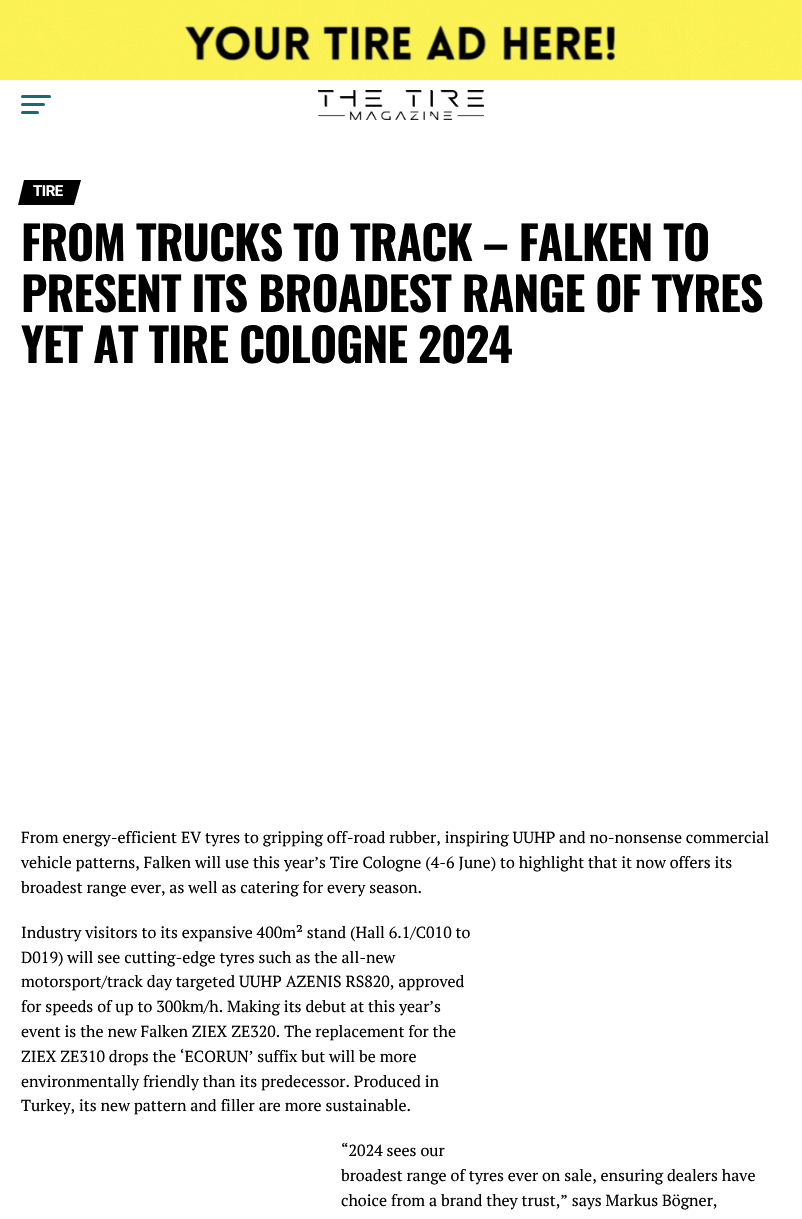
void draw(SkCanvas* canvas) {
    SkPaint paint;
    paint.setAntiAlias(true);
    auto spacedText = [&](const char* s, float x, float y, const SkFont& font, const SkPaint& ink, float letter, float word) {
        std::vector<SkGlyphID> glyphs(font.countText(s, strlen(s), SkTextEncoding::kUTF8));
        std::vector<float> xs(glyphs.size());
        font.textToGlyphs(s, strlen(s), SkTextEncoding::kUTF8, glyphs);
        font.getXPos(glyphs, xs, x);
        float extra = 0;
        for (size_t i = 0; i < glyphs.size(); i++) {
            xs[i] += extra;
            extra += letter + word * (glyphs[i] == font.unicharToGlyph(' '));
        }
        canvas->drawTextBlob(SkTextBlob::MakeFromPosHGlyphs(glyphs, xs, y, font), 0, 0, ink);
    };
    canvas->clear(0xFFFFFFFF);
    canvas->drawImageRect(SkImages::DeferredFromEncodedData(SkData::MakeFromFileName("img1.png")), SkRect::MakeXYWH(0, 0, 802, 80), SkSamplingOptions());
    paint.setColor(0xFF186A70);
    canvas->drawRoundRect(SkRect::MakeXYWH(21, 95, 30, 3), 1.5f, 1.5f, paint);
    canvas->drawRoundRect(SkRect::MakeXYWH(21, 103, 24, 3), 1.5f, 1.5f, paint);
    canvas->drawRoundRect(SkRect::MakeXYWH(21, 111, 18, 3), 1.5f, 1.5f, paint);
    canvas->drawImageRect(SkImages::DeferredFromEncodedData(SkData::MakeFromFileName("img2.png")), SkRect::MakeXYWH(318, 90, 166, 30), SkSamplingOptions());
    paint.setColor(0xFF000000);
    canvas->drawPath(SkPathBuilder().moveTo(24, 180).lineTo(81, 180).lineTo(74, 205).lineTo(18, 205).close().detach(), paint);
    SkFont font1(fontMgr->matchFamilyStyle("Roboto", SkFontStyle::Bold()), 15);
    font1.setSubpixel(true);
    paint.setColor(0xFFFFFFFF);
    spacedText("TIRE", 33, 196, font1, paint, -0.5f, 0);
    SkFont font2(fontMgr->matchFamilyStyle("Oswald", SkFontStyle::Bold()), 46.4f);
    font2.setSubpixel(true);
    paint.setColor(0xFF000000);
    spacedText("FROM TRUCKS TO TRACK – FALKEN TO", 21, 261, font2, paint, -0.95f, 0);
    spacedText("PRESENT ITS BROADEST RANGE OF TYRES", 21, 312, font2, paint, -0.95f, 0);
    spacedText("YET AT TIRE COLOGNE 2024", 21, 363, font2, paint, -0.95f, 0);
    SkFont font3(fontMgr->matchFamilyStyle("PT Serif", SkFontStyle::Normal()), 16);
    font3.setSubpixel(true);
    canvas->drawString("From energy-efficient EV tyres to gripping off-road rubber, inspiring UUHP and no-nonsense commercial", 21, 843, font3, paint);
    canvas->drawString("vehicle patterns, Falken will use this year’s Tire Cologne (4-6 June) to highlight that it now offers its", 21, 868, font3, paint);
    canvas->drawString("broadest range ever, as well as catering for every season.", 21, 893, font3, paint);
    canvas->drawString("Industry visitors to its expansive 400m² stand (Hall 6.1/C010 to", 21, 938, font3, paint);
    canvas->drawString("D019) will see cutting-edge tyres such as the all-new", 21, 963, font3, paint);
    canvas->drawString("motorsport/track day targeted UUHP AZENIS RS820, approved", 21, 987, font3, paint);
    canvas->drawString("for speeds of up to 300km/h. Making its debut at this year’s", 21, 1012, font3, paint);
    canvas->drawString("event is the new Falken ZIEX ZE320. The replacement for the", 21, 1037, font3, paint);
    canvas->drawString("ZIEX ZE310 drops the ‘ECORUN’ suffix but will be more", 21, 1062, font3, paint);
    canvas->drawString("environmentally friendly than its predecessor. Produced in", 21, 1087, font3, paint);
    canvas->drawString("Turkey, its new pattern and filler are more sustainable.", 21, 1111, font3, paint);
    canvas->drawString("“2024 sees our", 341, 1156, font3, paint);
    canvas->drawString("broadest range of tyres ever on sale, ensuring dealers have", 341, 1181, font3, paint);
    canvas->drawString("choice from a brand they trust,” says Markus Bögner,", 341, 1206, font3, paint);
}
